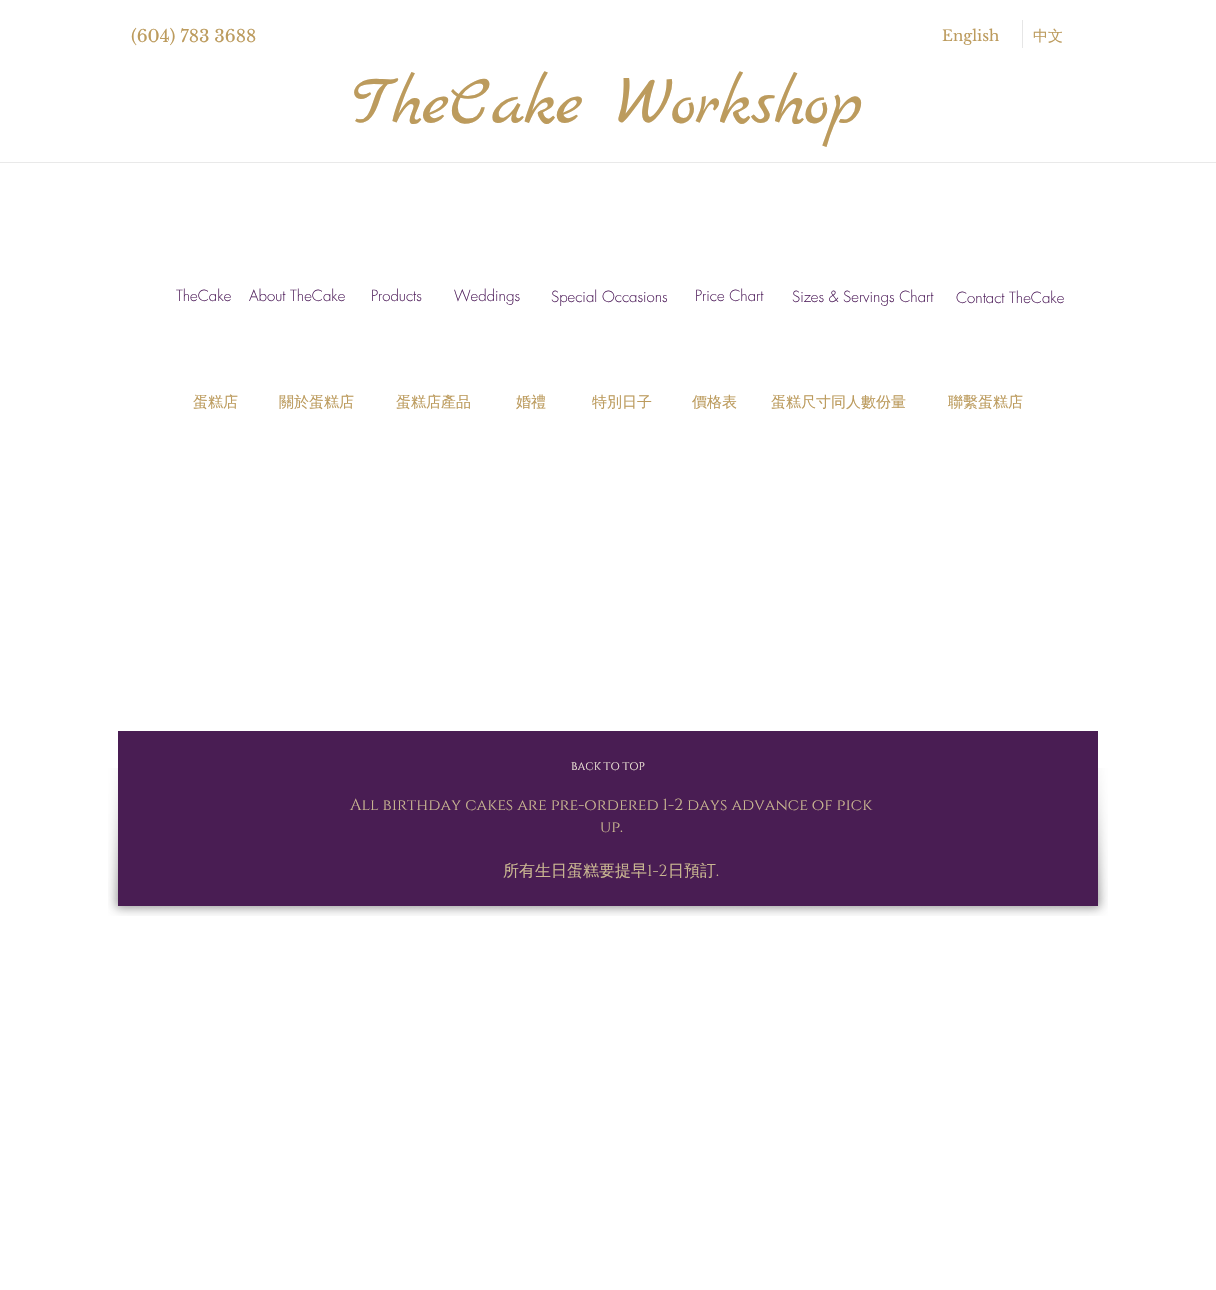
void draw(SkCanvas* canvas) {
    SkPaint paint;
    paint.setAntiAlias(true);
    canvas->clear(0xFFFFFFFF);
    SkFont font1(fontMgr->matchFamilyStyle("Libre Baskerville", SkFontStyle::Normal()), 17);
    font1.setSubpixel(true);
    paint.setColor(0xFFBC9B5D);
    canvas->drawString("(604) 783 3688", 131, 42, font1, paint);
    SkFont font2(fontMgr->matchFamilyStyle("Libre Baskerville", SkFontStyle::Normal()), 15);
    font2.setSubpixel(true);
    canvas->drawString("English", 942, 41, font2, paint);
    paint.setColor(0xFFE6E6E6);
    canvas->drawRect(SkRect::MakeXYWH(1022, 20, 1, 28), paint);
    SkFont font3(fontMgr->matchFamilyStyle("WenQuanYi Zen Hei", SkFontStyle(500, SkFontStyle::kNormal_Width, SkFontStyle::kUpright_Slant)), 15);
    font3.setSubpixel(true);
    paint.setColor(0xFFBC9B5D);
    canvas->drawString("中文", 1033, 41, font3, paint);
    SkFont font4(fontMgr->matchFamilyStyle("Marck Script", SkFontStyle::Normal()), 70);
    font4.setSubpixel(true);
    canvas->drawString("TheCake Workshop", 352, 123, font4, paint);
    paint.setColor(0xFFE9E9E9);
    canvas->drawRect(SkRect::MakeXYWH(0, 162, 1216, 1), paint);
    SkFont font5(fontMgr->matchFamilyStyle("futura", SkFontStyle(300, SkFontStyle::kNormal_Width, SkFontStyle::kUpright_Slant)), 15);
    font5.setSubpixel(true);
    paint.setColor(0xFF552661);
    canvas->drawString("TheCake", 176, 301, font5, paint);
    canvas->drawString("About TheCake", 249, 301, font5, paint);
    canvas->drawString("Products", 371, 301, font5, paint);
    canvas->drawString("Weddings", 454, 301, font5, paint);
    canvas->drawString("Special Occasions", 551, 302, font5, paint);
    canvas->drawString("Price Chart", 695, 301, font5, paint);
    canvas->drawString("Sizes & Servings Chart", 792, 302, font5, paint);
    canvas->drawString("Contact TheCake", 956, 303, font5, paint);
    paint.setColor(0xFFBC9B5D);
    canvas->drawString("蛋糕店", 193, 407, font3, paint);
    canvas->drawString("關於蛋糕店", 279, 407, font3, paint);
    canvas->drawString("蛋糕店產品", 396, 407, font3, paint);
    canvas->drawString("婚禮", 516, 407, font3, paint);
    canvas->drawString("特別日子", 592, 407, font3, paint);
    canvas->drawString("價格表", 692, 407, font3, paint);
    canvas->drawString("蛋糕尺寸同人數份量", 771, 407, font3, paint);
    canvas->drawString("聯繫蛋糕店", 948, 407, font3, paint);
    canvas->drawImageRect(SkImages::DeferredFromEncodedData(SkData::MakeFromFileName("img1.png")), SkRect::MakeXYWH(108, 768, 45, 148), SkSamplingOptions());
    canvas->drawImageRect(SkImages::DeferredFromEncodedData(SkData::MakeFromFileName("img3.png")), SkRect::MakeXYWH(1063, 768, 45, 148), SkSamplingOptions());
    paint.setColor(0xFF491D53);
    canvas->drawRect(SkRect::MakeXYWH(118, 731, 980, 175), paint);
    canvas->drawImageRect(SkImages::DeferredFromEncodedData(SkData::MakeFromFileName("img2.png")), SkRect::MakeXYWH(153, 906, 910, 10), SkSamplingOptions());
    SkFont font6(fontMgr->matchFamilyStyle("Cinzel", SkFontStyle::Normal()), 11);
    font6.setSubpixel(true);
    paint.setColor(0xFFF2EADA);
    canvas->drawString("BACK TO TOP", 571, 770, font6, paint);
    SkFont font7(fontMgr->matchFamilyStyle("Cinzel", SkFontStyle::Normal()), 16);
    font7.setSubpixel(true);
    paint.setColor(0xFFC9B691);
    canvas->drawString("All birthday cakes are pre-ordered 1-2 days advance of pick", 350, 810, font7, paint);
    canvas->drawString("up.", 600, 832, font7, paint);
    SkFont font8(fontMgr->matchFamilyStyle("WenQuanYi Zen Hei", SkFontStyle(500, SkFontStyle::kNormal_Width, SkFontStyle::kUpright_Slant)), 16);
    font8.setSubpixel(true);
    canvas->drawString("所有生日蛋糕要提早", 503, 876, font8, paint);
    canvas->drawString("1-2", 647, 876, font7, paint);
    canvas->drawString("日預訂", 668, 876, font8, paint);
    canvas->drawString(".", 716, 876, font7, paint);
}
